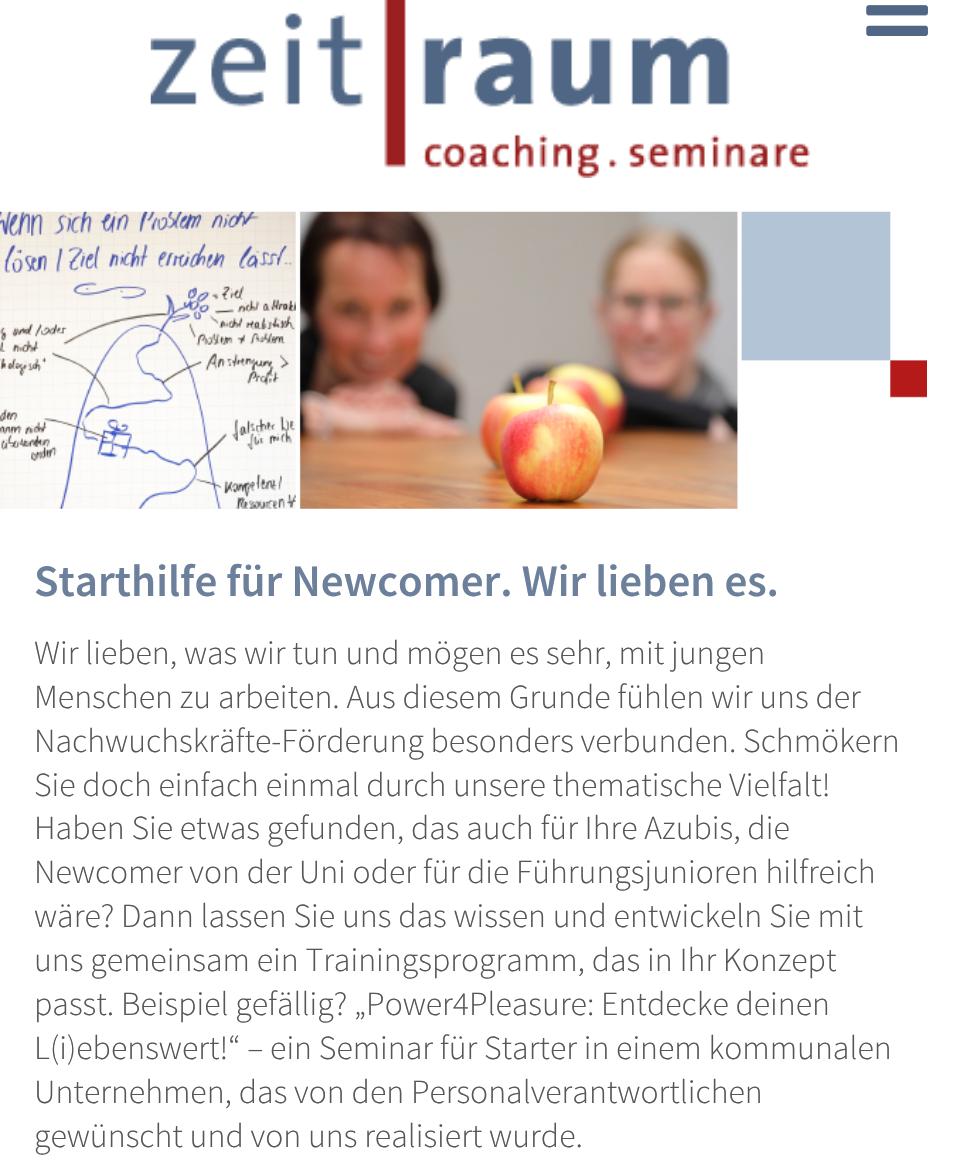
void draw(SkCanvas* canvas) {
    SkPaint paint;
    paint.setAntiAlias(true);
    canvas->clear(0xFFFFFFFF);
    canvas->drawImageRect(SkImages::DeferredFromEncodedData(SkData::MakeFromFileName("img1.png")), SkRect::MakeXYWH(150, 0, 660, 178), SkSamplingOptions());
    canvas->drawImageRect(SkImages::DeferredFromEncodedData(SkData::MakeFromFileName("img2.png")), SkRect::MakeXYWH(866, 5, 62, 31), SkSamplingOptions());
    canvas->drawImageRect(SkImages::DeferredFromEncodedData(SkData::MakeFromFileName("img3.png")), SkRect::MakeXYWH(0, 211, 927, 298), SkSamplingOptions());
    SkFont font1(fontMgr->matchFamilyStyle("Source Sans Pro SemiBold", SkFontStyle(600, SkFontStyle::kNormal_Width, SkFontStyle::kUpright_Slant)), 45);
    font1.setSubpixel(true);
    paint.setColor(0xFF6C809B);
    canvas->drawString("Starthilfe für Newcomer. Wir lieben es.", 34, 596, font1, paint);
    SkFont font2(fontMgr->matchFamilyStyle("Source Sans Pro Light", SkFontStyle(300, SkFontStyle::kNormal_Width, SkFontStyle::kUpright_Slant)), 33.75f);
    font2.setSubpixel(true);
    paint.setColor(0xFF565655);
    canvas->drawString("Wir lieben, was wir tun und mögen es sehr, mit jungen", 34, 664, font2, paint);
    canvas->drawString("Menschen zu arbeiten. Aus diesem Grunde fühlen wir uns der", 34, 708, font2, paint);
    canvas->drawString("Nachwuchskräfte-Förderung besonders verbunden. Schmökern", 34, 752, font2, paint);
    canvas->drawString("Sie doch einfach einmal durch unsere thematische Vielfalt!", 34, 796, font2, paint);
    canvas->drawString("Haben Sie etwas gefunden, das auch für Ihre Azubis, die", 34, 839, font2, paint);
    canvas->drawString("Newcomer von der Uni oder für die Führungsjunioren hilfreich", 34, 883, font2, paint);
    canvas->drawString("wäre? Dann lassen Sie uns das wissen und entwickeln Sie mit", 34, 927, font2, paint);
    canvas->drawString("uns gemeinsam ein Trainingsprogramm, das in Ihr Konzept", 34, 971, font2, paint);
    canvas->drawString("passt. Beispiel gefällig? „Power4Pleasure: Entdecke deinen", 34, 1015, font2, paint);
    canvas->drawString("L(i)ebenswert!“ – ein Seminar für Starter in einem kommunalen", 34, 1059, font2, paint);
    canvas->drawString("Unternehmen, das von den Personalverantwortlichen", 34, 1103, font2, paint);
    canvas->drawString("gewünscht und von uns realisiert wurde.", 34, 1147, font2, paint);
}
